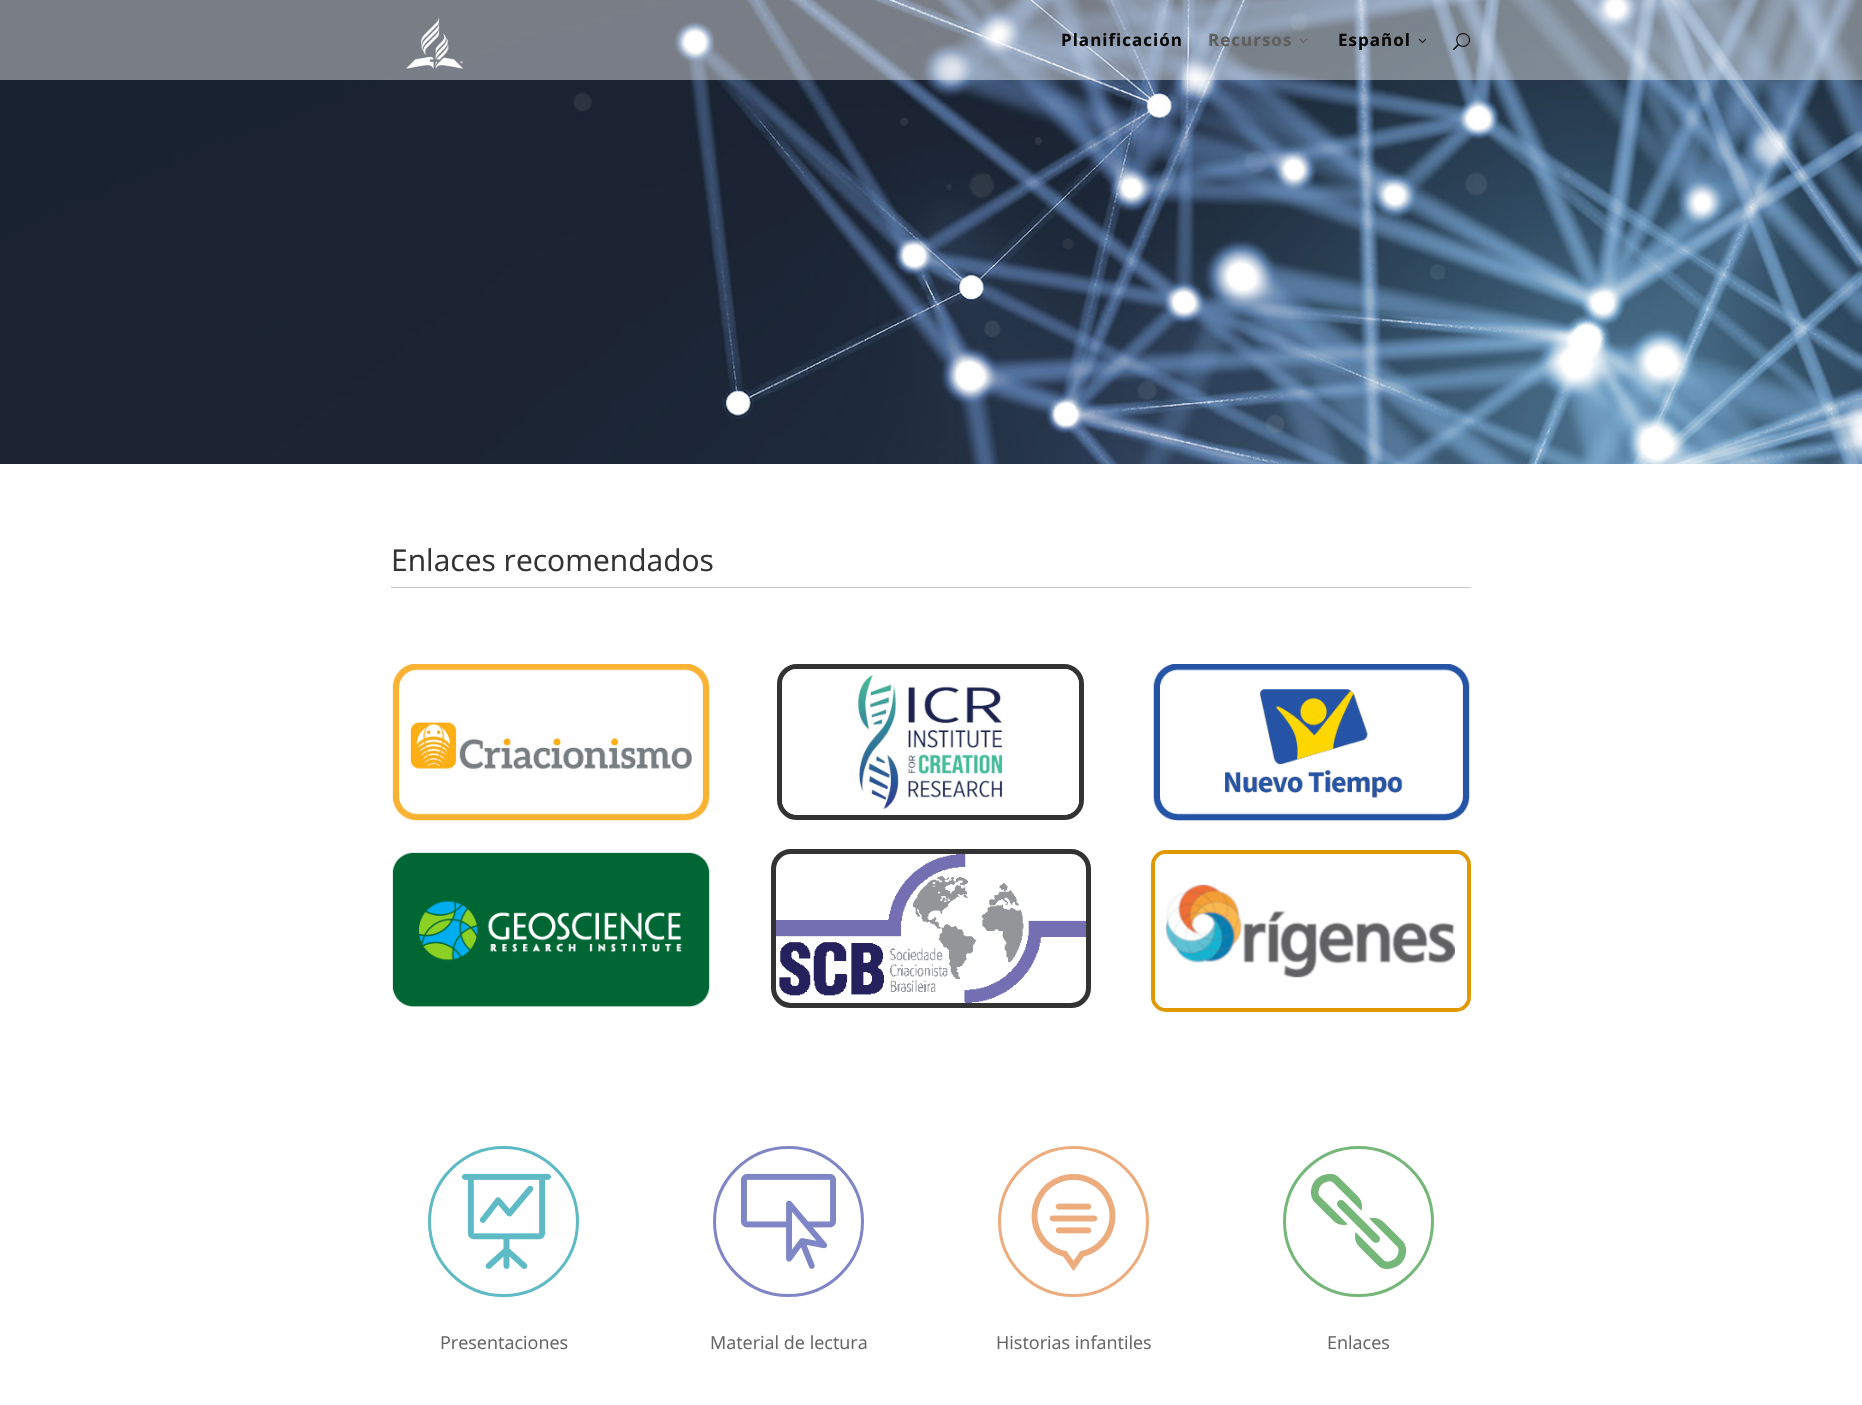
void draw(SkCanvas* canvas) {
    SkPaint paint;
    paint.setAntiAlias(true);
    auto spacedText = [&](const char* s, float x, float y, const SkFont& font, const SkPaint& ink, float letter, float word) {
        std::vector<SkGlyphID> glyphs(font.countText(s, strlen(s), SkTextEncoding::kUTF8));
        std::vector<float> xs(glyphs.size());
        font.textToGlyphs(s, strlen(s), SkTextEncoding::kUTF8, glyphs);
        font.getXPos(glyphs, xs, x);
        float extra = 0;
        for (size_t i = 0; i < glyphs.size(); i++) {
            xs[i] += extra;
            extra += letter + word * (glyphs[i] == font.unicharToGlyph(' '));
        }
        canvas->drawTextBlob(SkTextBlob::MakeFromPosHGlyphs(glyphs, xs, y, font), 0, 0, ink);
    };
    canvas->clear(0xFFFFFFFF);
    canvas->drawImageRect(SkImages::DeferredFromEncodedData(SkData::MakeFromFileName("img5.png")), SkRect::MakeXYWH(0, 0, 1862, 464), SkSamplingOptions());
    paint.setColor(0x69FFFFFF);
    canvas->drawRect(SkRect::MakeXYWH(0, 0, 1862, 80), paint);
    canvas->drawImageRect(SkImages::DeferredFromEncodedData(SkData::MakeFromFileName("img1.png")), SkRect::MakeXYWH(406, 17, 57, 52), SkSamplingOptions());
    SkFont font1(fontMgr->matchFamilyStyle("Open Sans", SkFontStyle::Bold()), 17);
    font1.setSubpixel(true);
    paint.setColor(0xFF0A0A0A);
    spacedText("Planificación", 1061, 46, font1, paint, 1, 0);
    paint.setColor(0xFF5E5E5E);
    spacedText("Recursos", 1208, 46, font1, paint, 1, 0);
    canvas->drawImageRect(SkImages::DeferredFromEncodedData(SkData::MakeFromFileName("img2.png")), SkRect::MakeXYWH(1299, 38, 9, 5), SkSamplingOptions());
    paint.setColor(0xFF0A0A0A);
    spacedText("Español", 1338, 46, font1, paint, 1, 0);
    canvas->drawImageRect(SkImages::DeferredFromEncodedData(SkData::MakeFromFileName("img3.png")), SkRect::MakeXYWH(1418, 38, 9, 5), SkSamplingOptions());
    canvas->drawImageRect(SkImages::DeferredFromEncodedData(SkData::MakeFromFileName("img4.png")), SkRect::MakeXYWH(1453, 33, 17, 18), SkSamplingOptions());
    SkFont font2(fontMgr->matchFamilyStyle("Open Sans", SkFontStyle::Normal()), 30);
    font2.setSubpixel(true);
    paint.setColor(0xFF333333);
    canvas->drawString("Enlaces recomendados", 391, 571, font2, paint);
    paint.setColor(0xFFC4C4C4);
    canvas->drawRect(SkRect::MakeXYWH(391, 587, 1080, 1), paint);
    canvas->drawImageRect(SkImages::DeferredFromEncodedData(SkData::MakeFromFileName("img6.png")), SkRect::MakeXYWH(392, 664, 318, 157), SkSamplingOptions());
    canvas->drawImageRect(SkImages::DeferredFromEncodedData(SkData::MakeFromFileName("img7.png")), SkRect::MakeXYWH(392, 852, 318, 155), SkSamplingOptions());
    paint.setStyle(SkPaint::kStroke_Style);
    paint.setStrokeWidth(5);
    paint.setColor(0xFF333333);
    canvas->drawRoundRect(SkRect::MakeXYWH(779.5f, 666.5f, 302, 151), 17.5f, 17.5f, paint);
    canvas->drawImageRect(SkImages::DeferredFromEncodedData(SkData::MakeFromFileName("img8.png")), SkRect::MakeXYWH(782, 669, 297, 146), SkSamplingOptions());
    canvas->drawRoundRect(SkRect::MakeXYWH(773.5f, 851.5f, 315, 154), 17.5f, 17.5f, paint);
    canvas->drawImageRect(SkImages::DeferredFromEncodedData(SkData::MakeFromFileName("img9.png")), SkRect::MakeXYWH(776, 854, 310, 149), SkSamplingOptions());
    canvas->drawImageRect(SkImages::DeferredFromEncodedData(SkData::MakeFromFileName("img10.png")), SkRect::MakeXYWH(1153, 664, 317, 157), SkSamplingOptions());
    paint.setStrokeWidth(4);
    paint.setColor(0xFFE09900);
    canvas->drawRoundRect(SkRect::MakeXYWH(1153, 852, 316, 158), 13, 13, paint);
    canvas->drawImageRect(SkImages::DeferredFromEncodedData(SkData::MakeFromFileName("img11.png")), SkRect::MakeXYWH(1155, 854, 312, 154), SkSamplingOptions());
    paint.setStrokeWidth(3);
    paint.setColor(0xFF5EBAC4);
    canvas->drawCircle(503.5f, 1221.5f, 74, paint);
    canvas->drawImageRect(SkImages::DeferredFromEncodedData(SkData::MakeFromFileName("img12.png")), SkRect::MakeXYWH(462, 1173, 89, 96), SkSamplingOptions());
    SkFont font3(fontMgr->matchFamilyStyle("Open Sans", SkFontStyle::Normal()), 18);
    font3.setSubpixel(true);
    paint.setStyle(SkPaint::kFill_Style);
    paint.setColor(0xFF666666);
    canvas->drawString("Presentaciones", 440, 1349, font3, paint);
    paint.setStyle(SkPaint::kStroke_Style);
    paint.setColor(0xFF7F86C6);
    canvas->drawCircle(788.5f, 1221.5f, 74, paint);
    canvas->drawImageRect(SkImages::DeferredFromEncodedData(SkData::MakeFromFileName("img13.png")), SkRect::MakeXYWH(741, 1173, 95, 96), SkSamplingOptions());
    paint.setStyle(SkPaint::kFill_Style);
    paint.setColor(0xFF666666);
    canvas->drawString("Material de lectura", 710, 1349, font3, paint);
    paint.setStyle(SkPaint::kStroke_Style);
    paint.setColor(0xFFEDAC7D);
    canvas->drawCircle(1073.5f, 1221.5f, 74, paint);
    canvas->drawImageRect(SkImages::DeferredFromEncodedData(SkData::MakeFromFileName("img14.png")), SkRect::MakeXYWH(1031, 1173, 85, 98), SkSamplingOptions());
    paint.setStyle(SkPaint::kFill_Style);
    paint.setColor(0xFF666666);
    canvas->drawString("Historias infantiles", 996, 1349, font3, paint);
    paint.setStyle(SkPaint::kStroke_Style);
    paint.setColor(0xFF75B778);
    canvas->drawCircle(1358.5f, 1221.5f, 74, paint);
    canvas->drawImageRect(SkImages::DeferredFromEncodedData(SkData::MakeFromFileName("img15.png")), SkRect::MakeXYWH(1310, 1173, 97, 96), SkSamplingOptions());
    paint.setStyle(SkPaint::kFill_Style);
    paint.setColor(0xFF666666);
    canvas->drawString("Enlaces", 1327, 1349, font3, paint);
}
